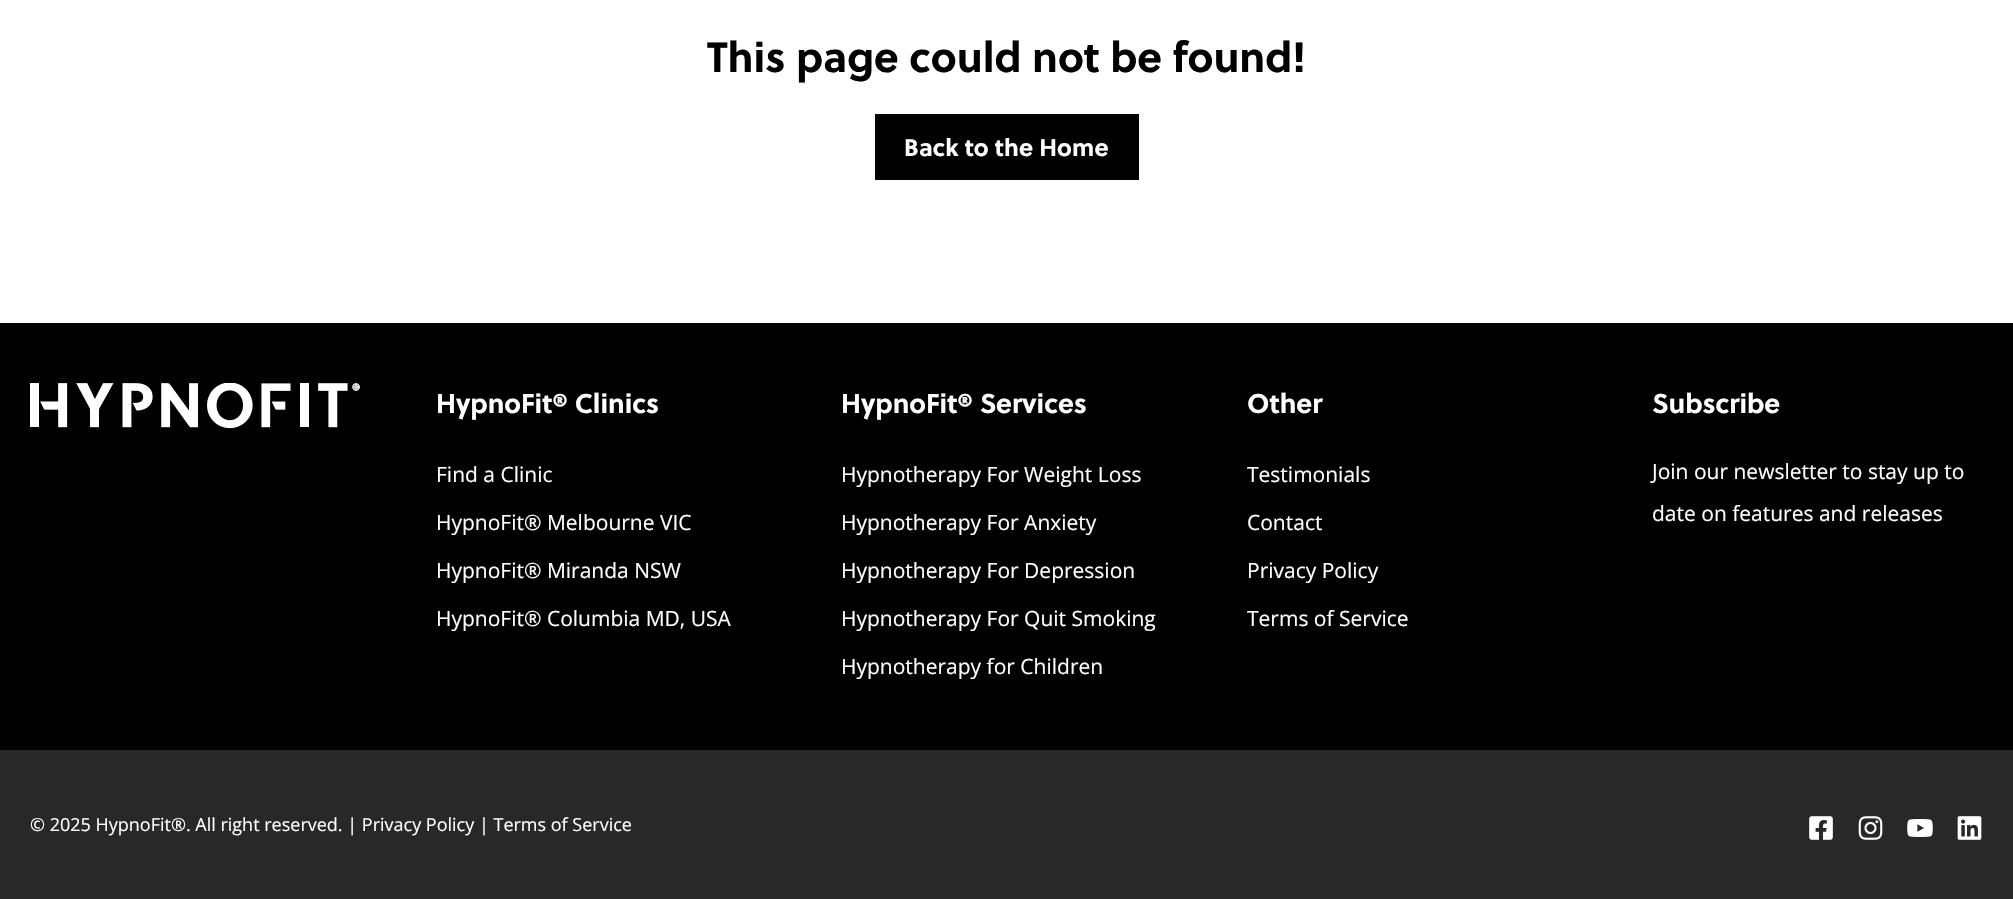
void draw(SkCanvas* canvas) {
    SkPaint paint;
    paint.setAntiAlias(true);
    auto spacedText = [&](const char* s, float x, float y, const SkFont& font, const SkPaint& ink, float letter, float word) {
        std::vector<SkGlyphID> glyphs(font.countText(s, strlen(s), SkTextEncoding::kUTF8));
        std::vector<float> xs(glyphs.size());
        font.textToGlyphs(s, strlen(s), SkTextEncoding::kUTF8, glyphs);
        font.getXPos(glyphs, xs, x);
        float extra = 0;
        for (size_t i = 0; i < glyphs.size(); i++) {
            xs[i] += extra;
            extra += letter + word * (glyphs[i] == font.unicharToGlyph(' '));
        }
        canvas->drawTextBlob(SkTextBlob::MakeFromPosHGlyphs(glyphs, xs, y, font), 0, 0, ink);
    };
    canvas->clear(0xFFFFFFFF);
    SkFont font1(fontMgr->matchFamilyStyle("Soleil", SkFontStyle::Bold()), 42);
    font1.setSubpixel(true);
    paint.setColor(0xFF000000);
    canvas->drawString("This page could not be found!", 707, 72, font1, paint);
    canvas->drawRect(SkRect::MakeXYWH(875, 114, 264, 66), paint);
    SkFont font2(fontMgr->matchFamilyStyle("Soleil", SkFontStyle::Bold()), 24);
    font2.setSubpixel(true);
    paint.setColor(0xFFFFFFFF);
    spacedText("Back to the Home", 904, 156, font2, paint, 0.1f, 0);
    paint.setColor(0xFF000000);
    canvas->drawRect(SkRect::MakeXYWH(0, 323, 2013, 427), paint);
    canvas->drawImageRect(SkImages::DeferredFromEncodedData(SkData::MakeFromFileName("img1.png")), SkRect::MakeXYWH(30, 383, 330, 46), SkSamplingOptions());
    SkFont font3(fontMgr->matchFamilyStyle("Soleil", SkFontStyle::Bold()), 27);
    font3.setSubpixel(true);
    paint.setColor(0xFFFFFFFF);
    canvas->drawString("HypnoFit® Clinics", 436, 413, font3, paint);
    SkFont font4(fontMgr->matchFamilyStyle("Open Sans", SkFontStyle::Normal()), 21);
    font4.setSubpixel(true);
    canvas->drawString("Find a Clinic", 436, 482, font4, paint);
    canvas->drawString("HypnoFit® Melbourne VIC", 436, 530, font4, paint);
    canvas->drawString("HypnoFit® Miranda NSW", 436, 578, font4, paint);
    canvas->drawString("HypnoFit® Columbia MD, USA", 436, 626, font4, paint);
    canvas->drawString("HypnoFit® Services", 841, 413, font3, paint);
    canvas->drawString("Hypnotherapy For Weight Loss", 841, 482, font4, paint);
    canvas->drawString("Hypnotherapy For Anxiety", 841, 530, font4, paint);
    canvas->drawString("Hypnotherapy For Depression", 841, 578, font4, paint);
    canvas->drawString("Hypnotherapy For Quit Smoking", 841, 626, font4, paint);
    canvas->drawString("Hypnotherapy for Children", 841, 674, font4, paint);
    canvas->drawString("Other", 1247, 413, font3, paint);
    canvas->drawString("Testimonials", 1247, 482, font4, paint);
    canvas->drawString("Contact", 1247, 530, font4, paint);
    canvas->drawString("Privacy Policy", 1247, 578, font4, paint);
    canvas->drawString("Terms of Service", 1247, 626, font4, paint);
    canvas->drawString("Subscribe", 1652, 413, font3, paint);
    canvas->drawString("Join our newsletter to stay up to", 1652, 479, font4, paint);
    canvas->drawString("date on features and releases", 1652, 521, font4, paint);
    paint.setColor(0xFF282828);
    canvas->drawRect(SkRect::MakeXYWH(0, 750, 2013, 149), paint);
    SkFont font5(fontMgr->matchFamilyStyle("Open Sans", SkFontStyle::Normal()), 18);
    font5.setSubpixel(true);
    paint.setColor(0xFFFFFFFF);
    canvas->drawString("© 2025 HypnoFit®. All right reserved. | Privacy Policy | Terms of Service", 30, 831, font5, paint);
    canvas->drawImageRect(SkImages::DeferredFromEncodedData(SkData::MakeFromFileName("img2.png")), SkRect::MakeXYWH(1809, 816, 24, 24), SkSamplingOptions());
    canvas->drawImageRect(SkImages::DeferredFromEncodedData(SkData::MakeFromFileName("img3.png")), SkRect::MakeXYWH(1858, 816, 25, 24), SkSamplingOptions());
    canvas->drawImageRect(SkImages::DeferredFromEncodedData(SkData::MakeFromFileName("img4.png")), SkRect::MakeXYWH(1907, 819, 26, 18), SkSamplingOptions());
    canvas->drawImageRect(SkImages::DeferredFromEncodedData(SkData::MakeFromFileName("img5.png")), SkRect::MakeXYWH(1957, 816, 25, 24), SkSamplingOptions());
}
